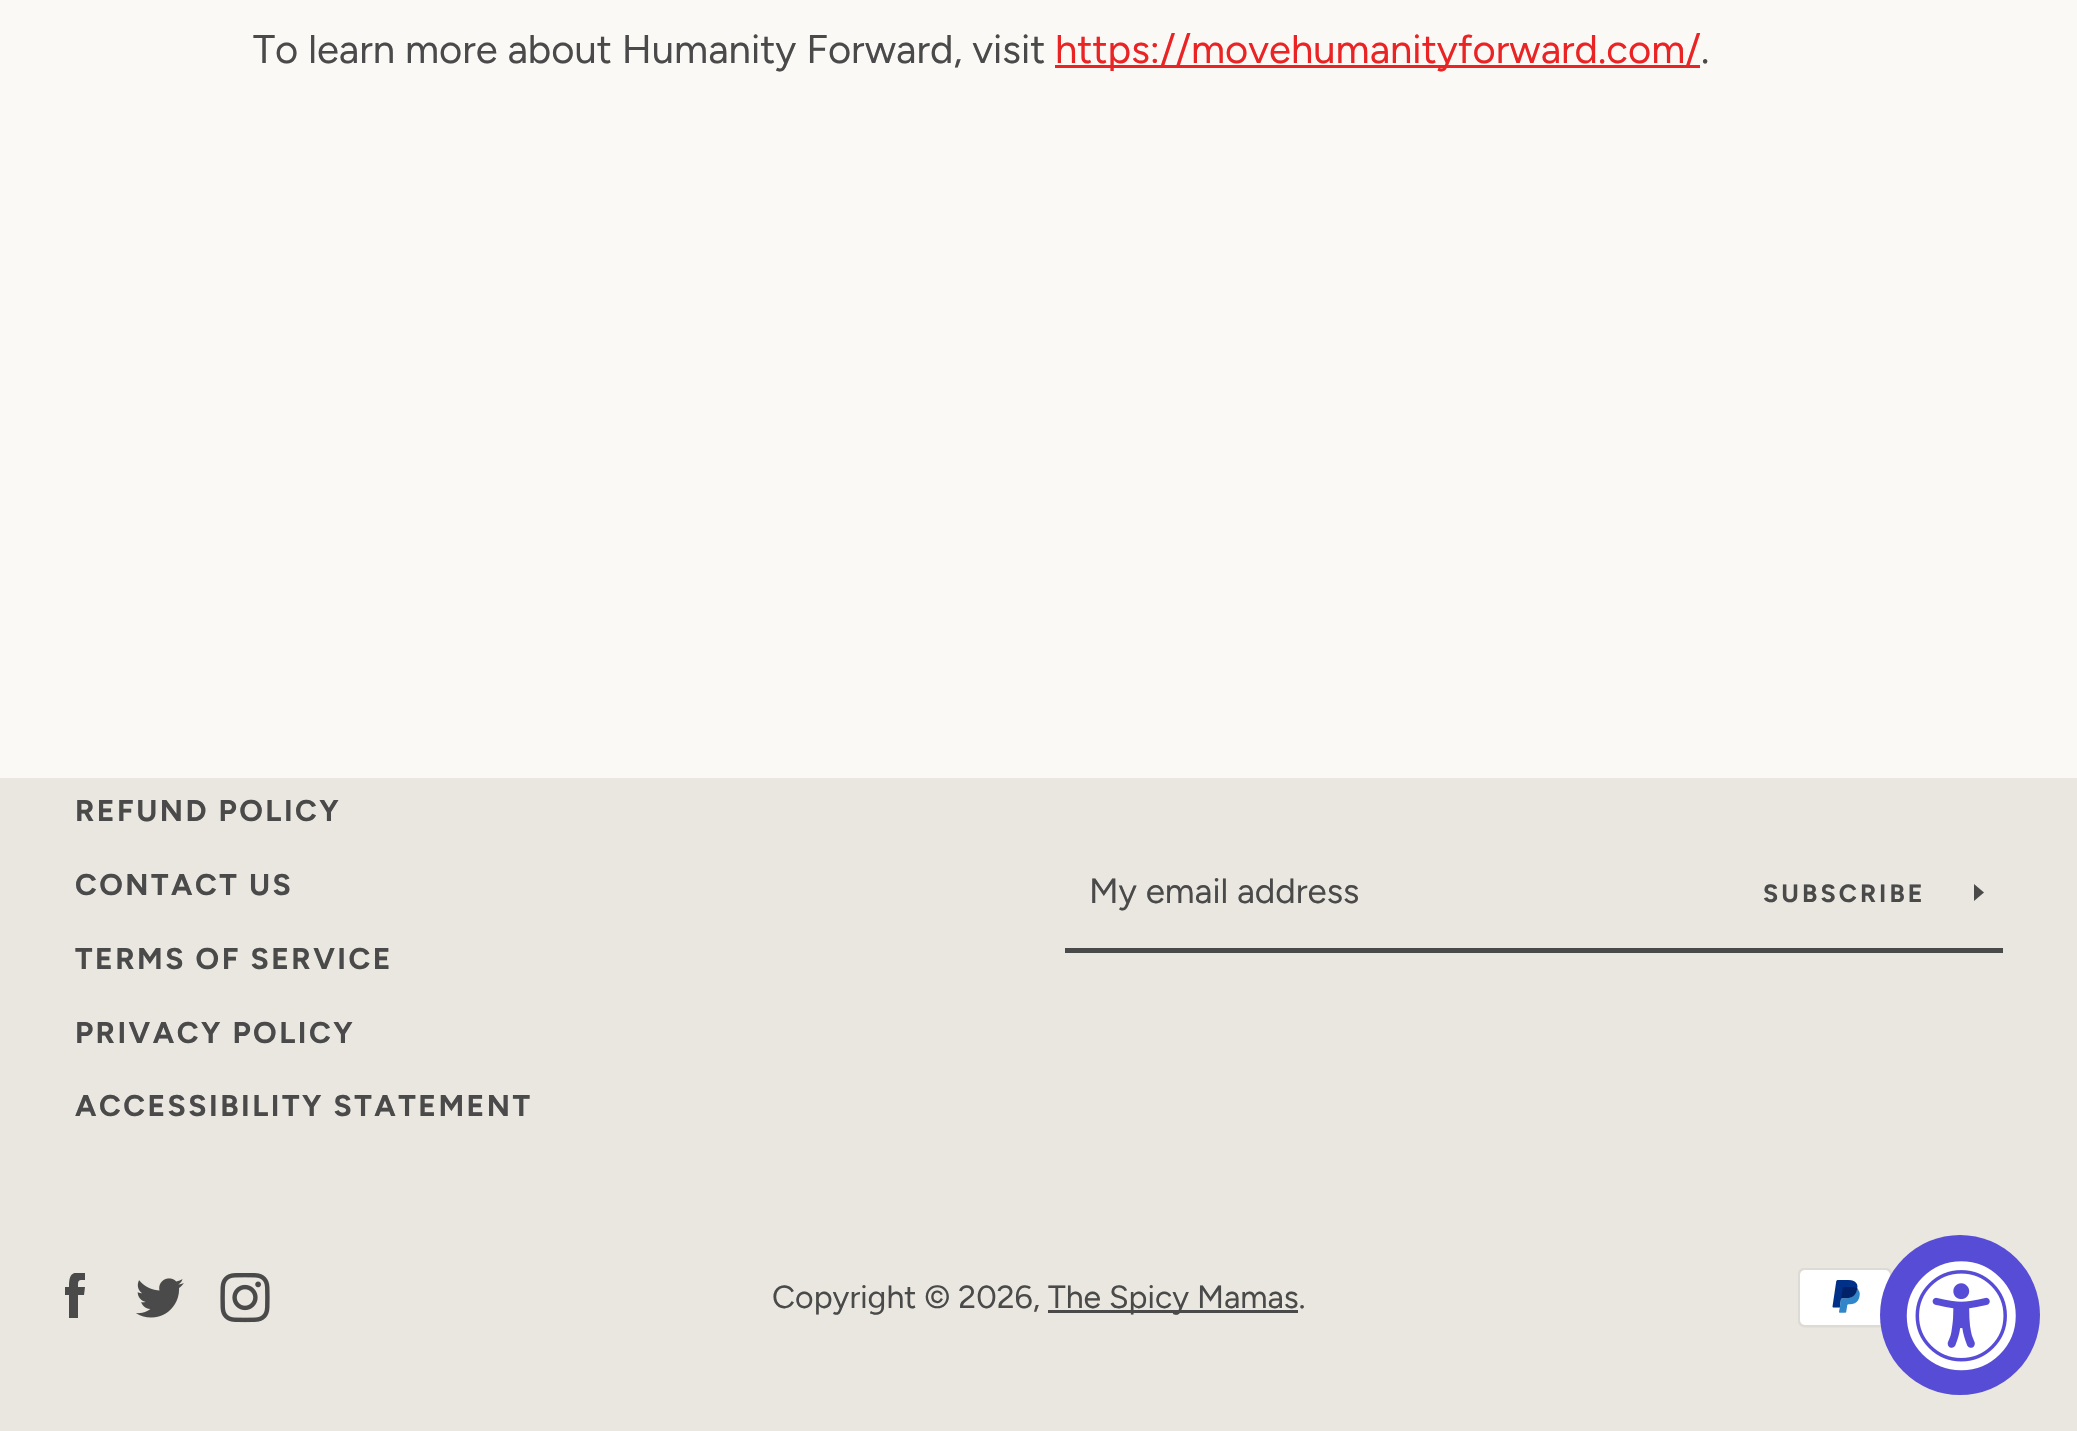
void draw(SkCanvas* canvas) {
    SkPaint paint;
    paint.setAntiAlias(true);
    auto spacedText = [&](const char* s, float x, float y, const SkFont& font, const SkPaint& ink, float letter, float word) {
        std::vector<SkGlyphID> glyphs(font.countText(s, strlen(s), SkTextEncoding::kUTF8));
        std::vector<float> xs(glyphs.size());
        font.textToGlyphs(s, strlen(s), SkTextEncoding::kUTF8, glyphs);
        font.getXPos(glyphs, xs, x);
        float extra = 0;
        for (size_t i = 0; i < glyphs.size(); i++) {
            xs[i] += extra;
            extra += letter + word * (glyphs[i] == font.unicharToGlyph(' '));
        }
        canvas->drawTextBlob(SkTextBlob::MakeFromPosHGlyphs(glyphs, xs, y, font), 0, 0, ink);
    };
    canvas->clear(0xFFEAE7E0);
    paint.setColor(0xFFFAF9F6);
    canvas->drawRect(SkRect::MakeXYWH(0, 0, 2077, 778), paint);
    SkFont font1(fontMgr->matchFamilyStyle("Figtree", SkFontStyle::Normal()), 40);
    font1.setSubpixel(true);
    paint.setColor(0xFF4A4A4A);
    canvas->drawString("To learn more about Humanity Forward, visit", 253, 63, font1, paint);
    paint.setColor(0xFFEA2424);
    canvas->drawString("https://movehumanityforward.com/", 1055, 63, font1, paint);
    canvas->drawRect(SkRect::MakeXYWH(1055, 65, 645, 3), paint);
    paint.setColor(0xFF4A4A4A);
    canvas->drawString(".", 1701, 63, font1, paint);
    SkFont font2(fontMgr->matchFamilyStyle("Figtree", SkFontStyle::Bold()), 30);
    font2.setSubpixel(true);
    spacedText("REFUND POLICY", 75, 821, font2, paint, 2.5f, 0);
    spacedText("CONTACT US", 75, 895, font2, paint, 2.5f, 0);
    spacedText("TERMS OF SERVICE", 75, 969, font2, paint, 2.5f, 0);
    spacedText("PRIVACY POLICY", 75, 1043, font2, paint, 2.5f, 0);
    spacedText("ACCESSIBILITY STATEMENT", 75, 1116, font2, paint, 2.5f, 0);
    canvas->drawRect(SkRect::MakeXYWH(1065, 948, 938, 5), paint);
    SkFont font3(fontMgr->matchFamilyStyle("Figtree", SkFontStyle::Normal()), 35);
    font3.setSubpixel(true);
    canvas->drawString("My email address", 1089, 903, font3, paint);
    SkFont font4(fontMgr->matchFamilyStyle("Figtree", SkFontStyle::Bold()), 25);
    font4.setSubpixel(true);
    spacedText("SUBSCRIBE", 1763, 902, font4, paint, 3.1f, 0);
    canvas->drawPath(SkPathBuilder().moveTo(1984, 892.5f).lineTo(1974, 901).lineTo(1974, 884).close().detach(), paint);
    canvas->save();
    canvas->clipRect(SkRect::MakeXYWH(50, 1273, 50, 50));
    canvas->drawPath(SkPathBuilder().moveTo(85, 1287).lineTo(78, 1287).cubicTo(78, 1280, 78, 1280, 85, 1280).lineTo(85, 1272).cubicTo(72, 1272, 69, 1273, 69, 1287).lineTo(65, 1287).lineTo(65, 1295).lineTo(69, 1295).lineTo(69, 1318).lineTo(78, 1318).lineTo(78, 1295).lineTo(84, 1295).close().detach(), paint);
    canvas->restore();
    canvas->drawImageRect(SkImages::DeferredFromEncodedData(SkData::MakeFromFileName("img1.png")), SkRect::MakeXYWH(136, 1278, 48, 40), SkSamplingOptions());
    canvas->drawImageRect(SkImages::DeferredFromEncodedData(SkData::MakeFromFileName("img2.png")), SkRect::MakeXYWH(220, 1273, 50, 50), SkSamplingOptions());
    SkFont font5(fontMgr->matchFamilyStyle("Figtree", SkFontStyle::Normal()), 32);
    font5.setSubpixel(true);
    canvas->drawString("Copyright © 2026,", 772, 1308, font5, paint);
    canvas->drawRect(SkRect::MakeXYWH(1048, 1310, 250, 3), paint);
    canvas->drawString("The Spicy Mamas.", 1048, 1308, font5, paint);
    canvas->drawImageRect(SkImages::DeferredFromEncodedData(SkData::MakeFromFileName("img3.png")), SkRect::MakeXYWH(1798, 1268, 94, 60), SkSamplingOptions());
    paint.setColor(0xFF574CD5);
    canvas->drawCircle(1960, 1315, 80, paint);
    canvas->drawImageRect(SkImages::DeferredFromEncodedData(SkData::MakeFromFileName("img4.png")), SkRect::MakeXYWH(1906, 1261, 110, 110), SkSamplingOptions());
}
